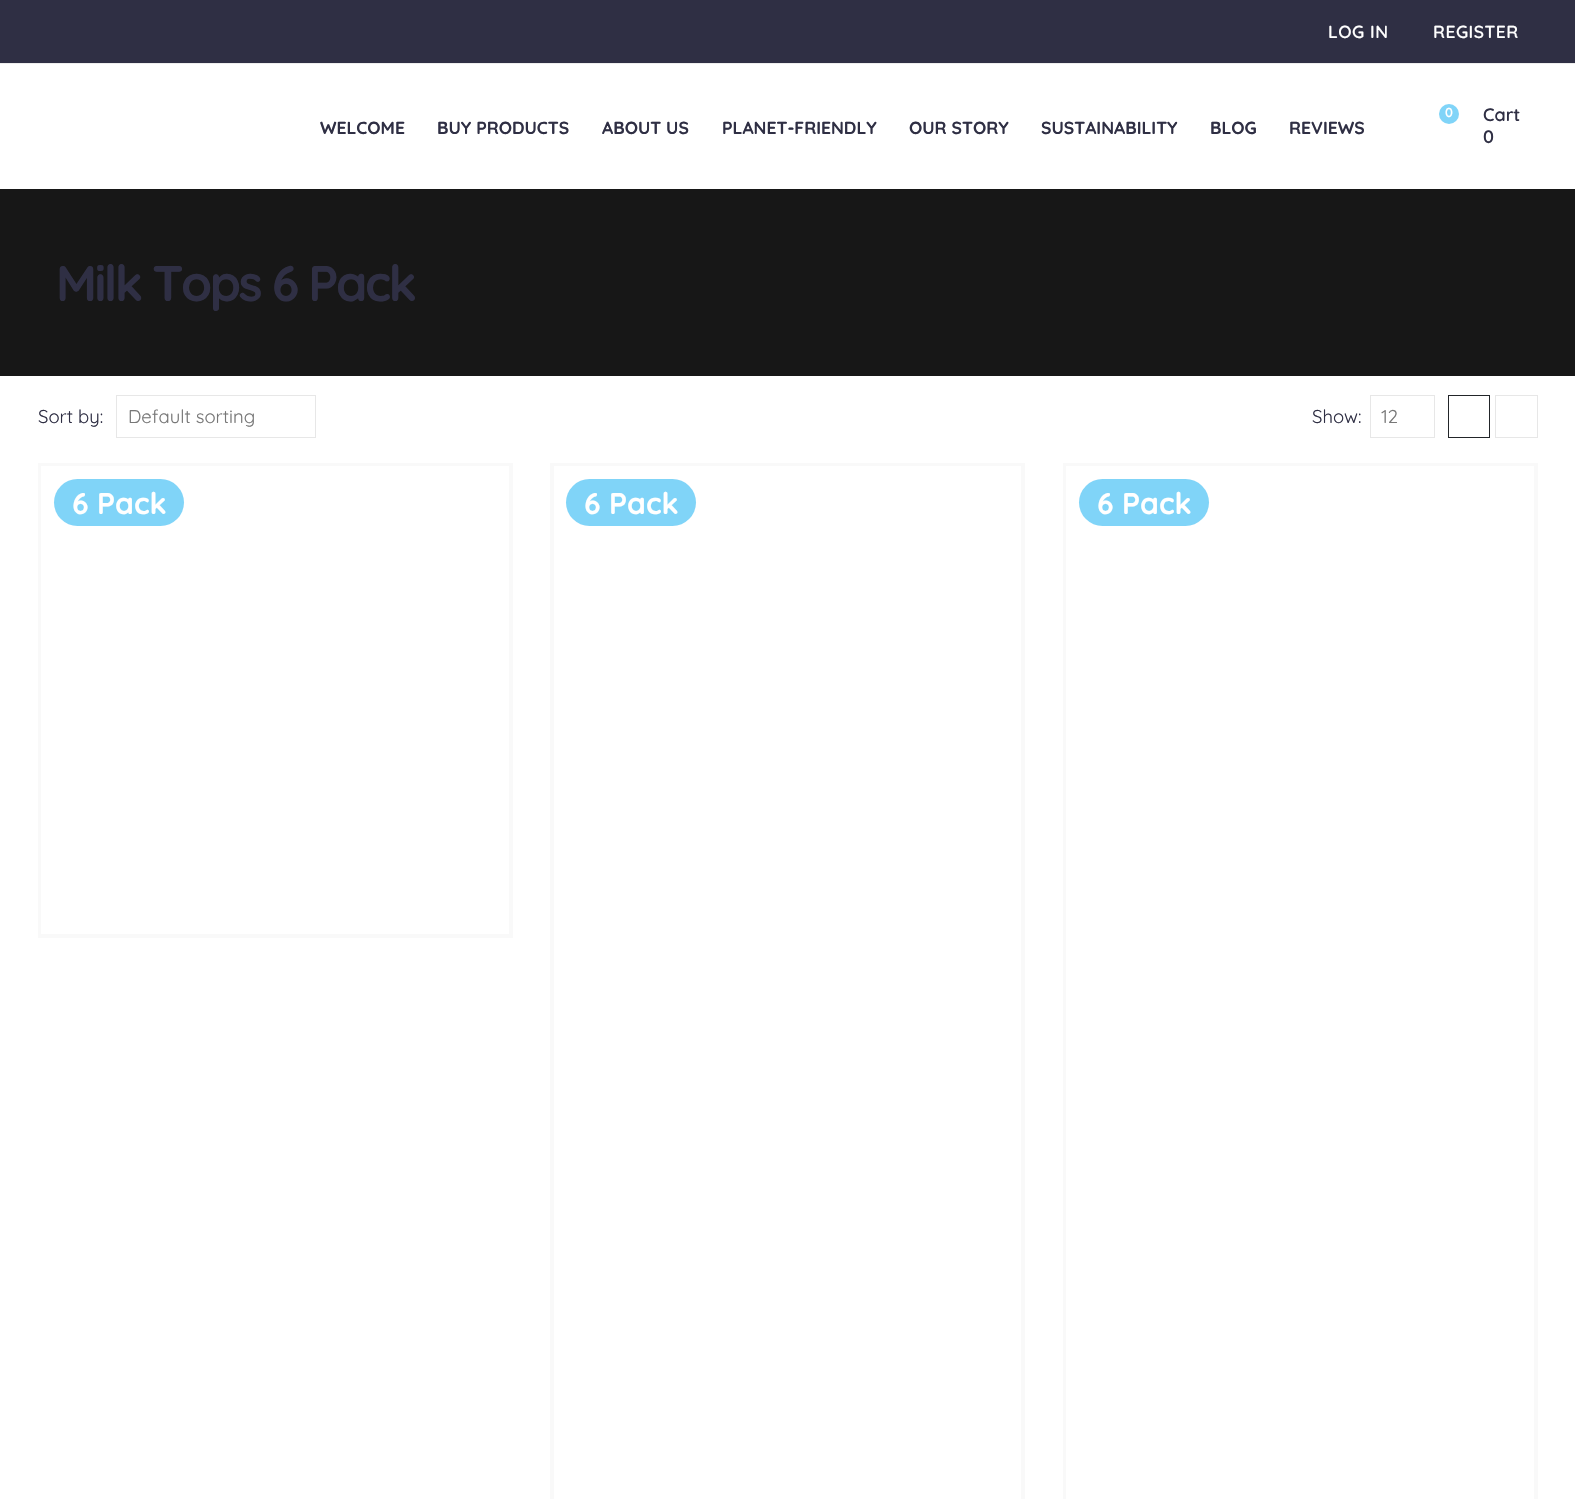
void draw(SkCanvas* canvas) {
    SkPaint paint;
    paint.setAntiAlias(true);
    auto spacedText = [&](const char* s, float x, float y, const SkFont& font, const SkPaint& ink, float letter, float word) {
        std::vector<SkGlyphID> glyphs(font.countText(s, strlen(s), SkTextEncoding::kUTF8));
        std::vector<float> xs(glyphs.size());
        font.textToGlyphs(s, strlen(s), SkTextEncoding::kUTF8, glyphs);
        font.getXPos(glyphs, xs, x);
        float extra = 0;
        for (size_t i = 0; i < glyphs.size(); i++) {
            xs[i] += extra;
            extra += letter + word * (glyphs[i] == font.unicharToGlyph(' '));
        }
        canvas->drawTextBlob(SkTextBlob::MakeFromPosHGlyphs(glyphs, xs, y, font), 0, 0, ink);
    };
    canvas->clear(0xFFFFFFFF);
    paint.setColor(0xFF2F2F44);
    canvas->drawRect(SkRect::MakeXYWH(0, 0, 1575, 63), paint);
    paint.setColor(0xFFEDEDED);
    canvas->drawRect(SkRect::MakeXYWH(0, 63, 1575, 1), paint);
    SkFont font1(fontMgr->matchFamilyStyle("Quicksand", SkFontStyle(600, SkFontStyle::kNormal_Width, SkFontStyle::kUpright_Slant)), 17.5f);
    font1.setSubpixel(true);
    paint.setColor(0xFFFFFFFF);
    spacedText("LOG IN", 1328, 38, font1, paint, 0.5f, 0);
    spacedText("REGISTER", 1433, 38, font1, paint, 0.5f, 0);
    SkFont font2(fontMgr->matchFamilyStyle("Quicksand", SkFontStyle::Bold()), 17.5f);
    font2.setSubpixel(true);
    paint.setColor(0xFF2F2F44);
    canvas->drawString("WELCOME", 320, 134, font2, paint);
    canvas->drawString("BUY PRODUCTS", 437, 134, font2, paint);
    canvas->drawString("ABOUT US", 602, 134, font2, paint);
    canvas->drawString("PLANET-FRIENDLY", 722, 134, font2, paint);
    canvas->drawString("OUR STORY", 909, 134, font2, paint);
    canvas->drawString("SUSTAINABILITY", 1041, 134, font2, paint);
    canvas->drawString("BLOG", 1210, 134, font2, paint);
    canvas->drawString("REVIEWS", 1289, 134, font2, paint);
    paint.setColor(0xFF80D4F8);
    canvas->drawCircle(1449, 114, 10, paint);
    SkFont font3(fontMgr->matchFamilyStyle("Quicksand", SkFontStyle(600, SkFontStyle::kNormal_Width, SkFontStyle::kUpright_Slant)), 13);
    font3.setSubpixel(true);
    paint.setColor(0xFFFFFFFF);
    canvas->drawString("0", 1445, 117, font3, paint);
    SkFont font4(fontMgr->matchFamilyStyle("Quicksand", SkFontStyle(600, SkFontStyle::kNormal_Width, SkFontStyle::kUpright_Slant)), 18);
    font4.setSubpixel(true);
    paint.setColor(0xFF2F2F44);
    canvas->drawString("Cart", 1483, 121, font4, paint);
    canvas->drawString("0", 1483, 143, font4, paint);
    paint.setColor(0xFF171717);
    canvas->drawRect(SkRect::MakeXYWH(0, 189, 1575, 187), paint);
    SkFont font5(fontMgr->matchFamilyStyle("Quicksand", SkFontStyle::Bold()), 50);
    font5.setSubpixel(true);
    paint.setColor(0xFF2F2F44);
    spacedText("Milk Tops 6 Pack", 56, 301, font5, paint, -2.5f, 0);
    SkFont font6(fontMgr->matchFamilyStyle("Quicksand", SkFontStyle::Normal()), 18.5f);
    font6.setSubpixel(true);
    canvas->drawString("Sort by:", 38, 423, font6, paint);
    paint.setStyle(SkPaint::kStroke_Style);
    paint.setStrokeWidth(1);
    paint.setColor(0xFFE7E7E7);
    canvas->drawRect(SkRect::MakeXYWH(116.5f, 395.5f, 199, 42), paint);
    paint.setStyle(SkPaint::kFill_Style);
    paint.setColor(0xFF777777);
    canvas->drawString("Default sorting", 128, 423, font6, paint);
    paint.setColor(0xFF2F2F44);
    canvas->drawString("Show:", 1312, 423, font6, paint);
    paint.setStyle(SkPaint::kStroke_Style);
    paint.setColor(0xFFE7E7E7);
    canvas->drawRect(SkRect::MakeXYWH(1370.5f, 395.5f, 64, 42), paint);
    paint.setStyle(SkPaint::kFill_Style);
    paint.setColor(0xFF777777);
    canvas->drawString("12", 1381, 423, font6, paint);
    paint.setStyle(SkPaint::kStroke_Style);
    paint.setColor(0xFF222529);
    canvas->drawRect(SkRect::MakeXYWH(1448.5f, 395.5f, 41, 42), paint);
    paint.setColor(0xFFE7E7E7);
    canvas->drawRect(SkRect::MakeXYWH(1495.5f, 395.5f, 42, 42), paint);
    paint.setStrokeWidth(4);
    paint.setColor(0xFFF9F9F9);
    canvas->drawRect(SkRect::MakeXYWH(40, 465, 471, 471), paint);
    paint.setStyle(SkPaint::kFill_Style);
    paint.setColor(0xFFFFFFFF);
    canvas->drawRect(SkRect::MakeXYWH(41, 466, 468, 468), paint);
    paint.setColor(0xFF80D4F8);
    canvas->drawRoundRect(SkRect::MakeXYWH(54, 479, 130, 47), 23.5f, 23.5f, paint);
    SkFont font7(fontMgr->matchFamilyStyle("Quicksand", SkFontStyle::Bold()), 30);
    font7.setSubpixel(true);
    paint.setColor(0xFFFFFFFF);
    canvas->drawString("6 Pack", 72, 514, font7, paint);
    paint.setStyle(SkPaint::kStroke_Style);
    paint.setColor(0xFFF9F9F9);
    canvas->drawRect(SkRect::MakeXYWH(552, 465, 471, 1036), paint);
    paint.setStyle(SkPaint::kFill_Style);
    paint.setColor(0xFFFFFFFF);
    canvas->drawRect(SkRect::MakeXYWH(554, 466, 467, 1), paint);
    paint.setColor(0xFF80D4F8);
    canvas->drawRoundRect(SkRect::MakeXYWH(566, 479, 130, 47), 23.5f, 23.5f, paint);
    paint.setColor(0xFFFFFFFF);
    canvas->drawString("6 Pack", 584, 514, font7, paint);
    paint.setStyle(SkPaint::kStroke_Style);
    paint.setColor(0xFFF9F9F9);
    canvas->drawRect(SkRect::MakeXYWH(1065, 465, 471, 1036), paint);
    paint.setStyle(SkPaint::kFill_Style);
    paint.setColor(0xFFFFFFFF);
    canvas->drawRect(SkRect::MakeXYWH(1066, 466, 468, 1033), paint);
    paint.setColor(0xFF80D4F8);
    canvas->drawRoundRect(SkRect::MakeXYWH(1079, 479, 130, 47), 23.5f, 23.5f, paint);
    paint.setColor(0xFFFFFFFF);
    canvas->drawString("6 Pack", 1097, 514, font7, paint);
}
